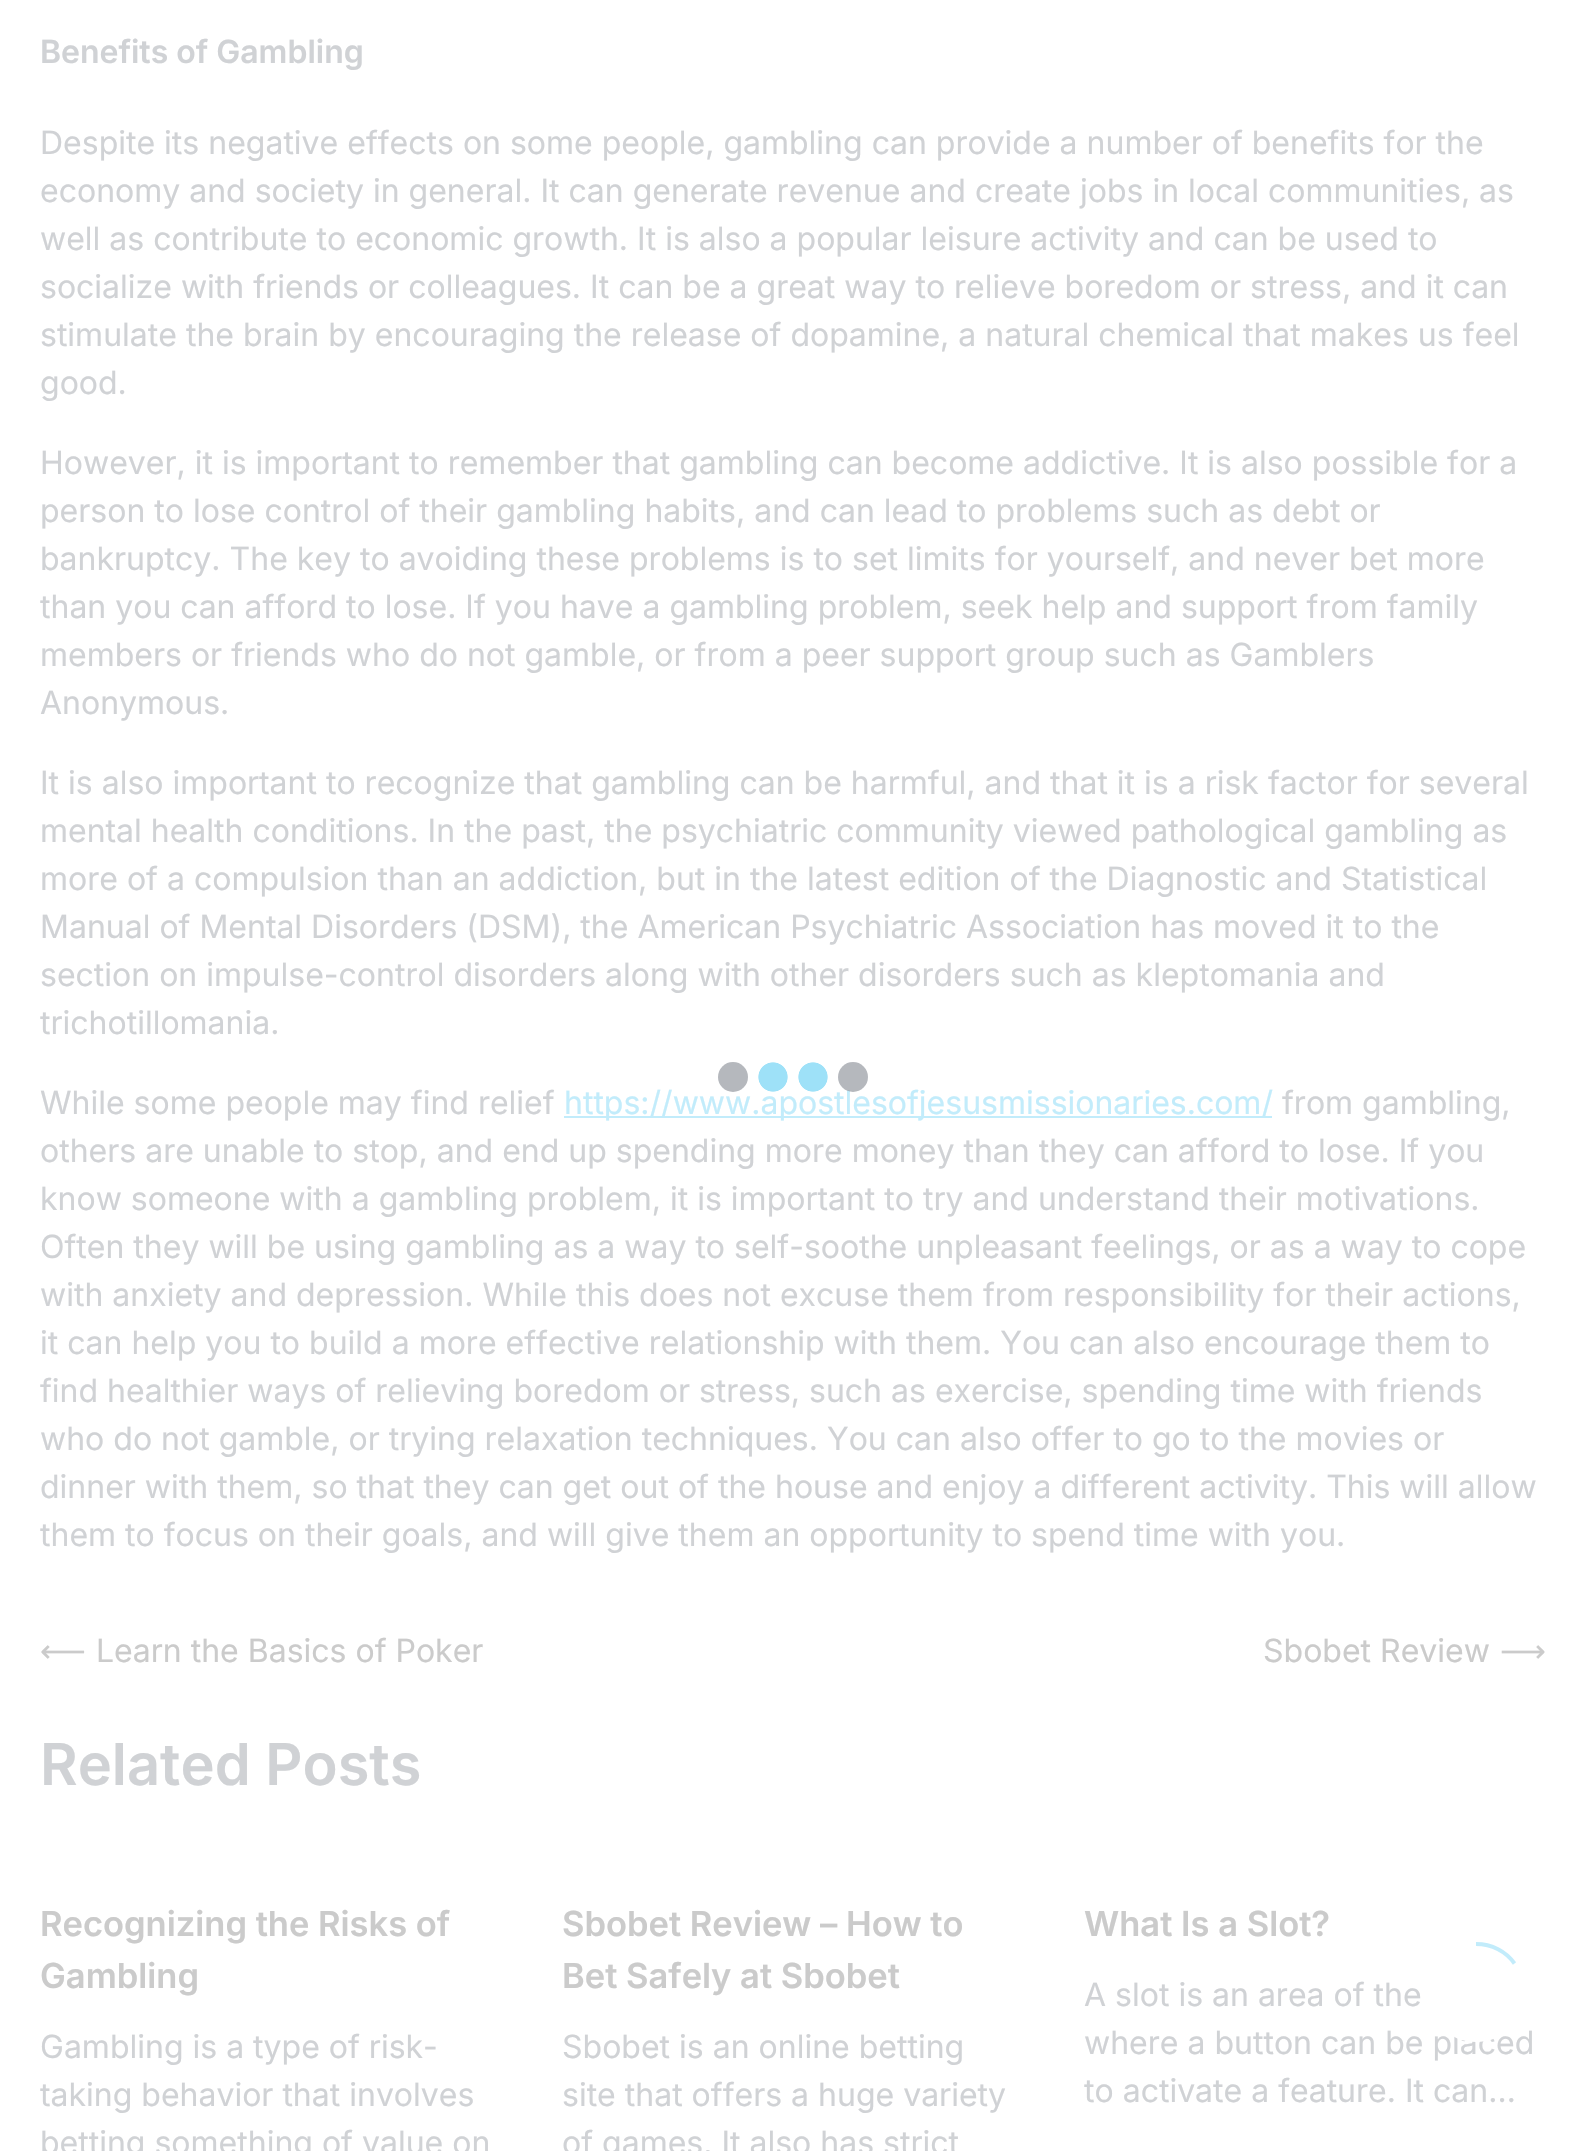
void draw(SkCanvas* canvas) {
    SkPaint paint;
    paint.setAntiAlias(true);
    canvas->clear(0xFFFFFFFF);
    SkFont font1(fontMgr->matchFamilyStyle("Inter", SkFontStyle(600, SkFontStyle::kNormal_Width, SkFontStyle::kUpright_Slant)), 32);
    font1.setSubpixel(true);
    paint.setColor(0xFFD0D2D5);
    canvas->drawString("Benefits of Gambling", 40, 63, font1, paint);
    SkFont font2(fontMgr->matchFamilyStyle("Inter", SkFontStyle::Normal()), 32);
    font2.setSubpixel(true);
    canvas->drawString("Despite its negative effects on some people, gambling can provide a number of benefits for the", 40, 154, font2, paint);
    canvas->drawString("economy and society in general. It can generate revenue and create jobs in local communities, as", 40, 202, font2, paint);
    canvas->drawString("well as contribute to economic growth. It is also a popular leisure activity and can be used to", 40, 250, font2, paint);
    canvas->drawString("socialize with friends or colleagues. It can be a great way to relieve boredom or stress, and it can", 40, 298, font2, paint);
    canvas->drawString("stimulate the brain by encouraging the release of dopamine, a natural chemical that makes us feel", 40, 346, font2, paint);
    canvas->drawString("good.", 40, 394, font2, paint);
    canvas->drawString("However, it is important to remember that gambling can become addictive. It is also possible for a", 40, 474, font2, paint);
    canvas->drawString("person to lose control of their gambling habits, and can lead to problems such as debt or", 40, 522, font2, paint);
    canvas->drawString("bankruptcy. The key to avoiding these problems is to set limits for yourself, and never bet more", 40, 570, font2, paint);
    canvas->drawString("than you can afford to lose. If you have a gambling problem, seek help and support from family", 40, 618, font2, paint);
    canvas->drawString("members or friends who do not gamble, or from a peer support group such as Gamblers", 40, 666, font2, paint);
    canvas->drawString("Anonymous.", 40, 714, font2, paint);
    canvas->drawString("It is also important to recognize that gambling can be harmful, and that it is a risk factor for several", 40, 794, font2, paint);
    canvas->drawString("mental health conditions. In the past, the psychiatric community viewed pathological gambling as", 40, 842, font2, paint);
    canvas->drawString("more of a compulsion than an addiction, but in the latest edition of the Diagnostic and Statistical", 40, 890, font2, paint);
    canvas->drawString("Manual of Mental Disorders (DSM), the American Psychiatric Association has moved it to the", 40, 938, font2, paint);
    canvas->drawString("section on impulse-control disorders along with other disorders such as kleptomania and", 40, 986, font2, paint);
    canvas->drawString("trichotillomania.", 40, 1034, font2, paint);
    canvas->drawString("While some people may find relief", 40, 1114, font2, paint);
    paint.setColor(0xFFC2ECFB);
    canvas->drawRect(SkRect::MakeXYWH(564, 1116, 708, 2), paint);
    canvas->drawString("https://www.apostlesofjesusmissionaries.com/", 564, 1114, font2, paint);
    paint.setColor(0xFFD0D2D5);
    canvas->drawString("from gambling,", 1282, 1114, font2, paint);
    canvas->drawString("others are unable to stop, and end up spending more money than they can afford to lose. If you", 40, 1162, font2, paint);
    canvas->drawString("know someone with a gambling problem, it is important to try and understand their motivations.", 40, 1210, font2, paint);
    canvas->drawString("Often they will be using gambling as a way to self-soothe unpleasant feelings, or as a way to cope", 40, 1258, font2, paint);
    canvas->drawString("with anxiety and depression. While this does not excuse them from responsibility for their actions,", 40, 1306, font2, paint);
    canvas->drawString("it can help you to build a more effective relationship with them. You can also encourage them to", 40, 1354, font2, paint);
    canvas->drawString("find healthier ways of relieving boredom or stress, such as exercise, spending time with friends", 40, 1402, font2, paint);
    canvas->drawString("who do not gamble, or trying relaxation techniques. You can also offer to go to the movies or", 40, 1450, font2, paint);
    canvas->drawString("dinner with them, so that they can get out of the house and enjoy a different activity. This will allow", 40, 1498, font2, paint);
    canvas->drawString("them to focus on their goals, and will give them an opportunity to spend time with you.", 40, 1546, font2, paint);
    SkFont font3(fontMgr->matchFamilyStyle("DejaVu Sans", SkFontStyle::Normal()), 32);
    font3.setSubpixel(true);
    paint.setColor(0xFFCBCBCB);
    canvas->drawString("⟵", 40, 1662, font3, paint);
    canvas->drawString("Learn the Basics of Poker", 96, 1662, font2, paint);
    canvas->drawString("Sbobet Review", 1263, 1662, font2, paint);
    canvas->drawString("⟶", 1500, 1662, font3, paint);
    SkFont font4(fontMgr->matchFamilyStyle("Inter", SkFontStyle(600, SkFontStyle::kNormal_Width, SkFontStyle::kUpright_Slant)), 57.75f);
    font4.setSubpixel(true);
    paint.setColor(0xFFD0D2D5);
    canvas->drawString("Related Posts", 40, 1785, font4, paint);
    SkFont font5(fontMgr->matchFamilyStyle("Inter", SkFontStyle(600, SkFontStyle::kNormal_Width, SkFontStyle::kUpright_Slant)), 34.5f);
    font5.setSubpixel(true);
    paint.setColor(0xFFCBCBCB);
    canvas->drawString("Recognizing the Risks of", 40, 1936, font5, paint);
    canvas->drawString("Gambling", 40, 1988, font5, paint);
    paint.setColor(0xFFD0D2D5);
    canvas->drawString("Gambling is a type of risk-", 40, 2058, font2, paint);
    canvas->drawString("taking behavior that involves", 40, 2106, font2, paint);
    canvas->drawString("betting something of value on", 40, 2154, font2, paint);
    paint.setColor(0xFFCBCBCB);
    canvas->drawString("Sbobet Review – How to", 562, 1936, font5, paint);
    canvas->drawString("Bet Safely at Sbobet", 562, 1988, font5, paint);
    paint.setColor(0xFFD0D2D5);
    canvas->drawString("Sbobet is an online betting", 562, 2058, font2, paint);
    canvas->drawString("site that offers a huge variety", 562, 2106, font2, paint);
    canvas->drawString("of games. It also has strict", 562, 2154, font2, paint);
    paint.setColor(0xFFCBCBCB);
    canvas->drawString("What Is a Slot?", 1084, 1936, font5, paint);
    paint.setColor(0xFFD0D2D5);
    canvas->drawString("A slot is an area of the", 1084, 2006, font2, paint);
    canvas->drawString("where a button can be placed", 1084, 2054, font2, paint);
    canvas->drawString("to activate a feature. It can…", 1084, 2102, font2, paint);
    {
        const SkColor colors[] = {0xFF9EE1F8, 0xFFFFFFFF};
        const float stops[] = {0.95f, 1};
        paint.setShader(SkGradientShader::MakeRadial({813, 1077}, 15, colors, stops, 2, SkTileMode::kClamp));
        paint.setAlpha(255);
    }
    canvas->drawRect(SkRect::MakeXYWH(798, 1062, 30, 30), paint);
    {
        const SkColor colors[] = {0xFF9EE1F8, 0xFFFFFFFF};
        const float stops[] = {0.95f, 1};
        paint.setShader(SkGradientShader::MakeRadial({773, 1077}, 15, colors, stops, 2, SkTileMode::kClamp));
        paint.setAlpha(255);
    }
    canvas->drawRect(SkRect::MakeXYWH(758, 1062, 30, 30), paint);
    paint.setShader(nullptr);
    paint.setColor(0xFFB5B8BD);
    canvas->drawCircle(733, 1077, 15, paint);
    paint.setColor(0x613D4452);
    canvas->drawCircle(853, 1077, 15, paint);
    paint.setColor(0xFFFFFFFF);
    canvas->drawCircle(1476, 1992, 50, paint);
    paint.setStyle(SkPaint::kStroke_Style);
    paint.setStrokeWidth(3.9f);
    paint.setColor(0xFFC2ECFB);
    canvas->drawPath(SkPathBuilder().moveTo(1476, 1944).cubicTo(1492, 1944, 1506, 1951.5f, 1514.5f, 1963.5f).detach(), paint);
}
